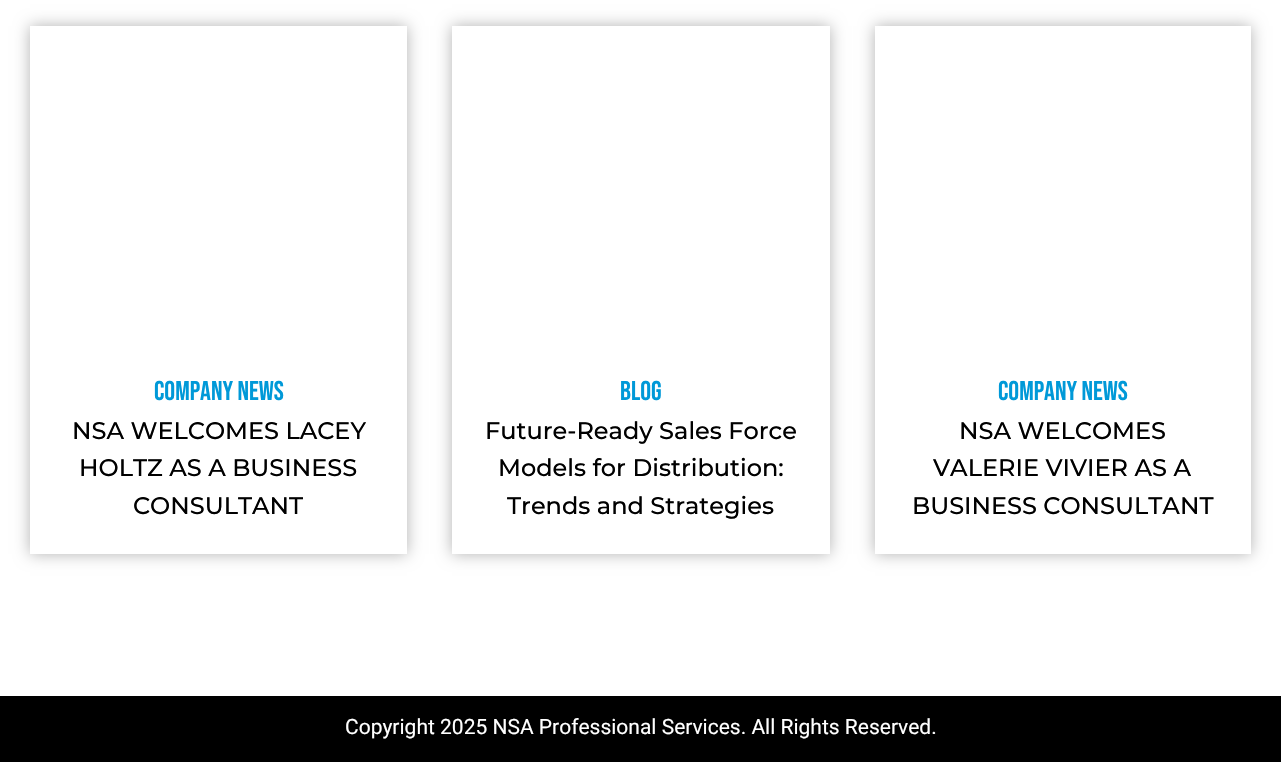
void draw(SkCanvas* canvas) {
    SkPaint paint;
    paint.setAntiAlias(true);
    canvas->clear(0xFFFFFFFF);
    paint.setColor(0x4D000000);
    paint.setMaskFilter(SkMaskFilter::MakeBlur(kNormal_SkBlurStyle, 7.5f));
    canvas->drawRect(SkRect::MakeXYWH(30, 26, 377, 528), paint);
    paint.setMaskFilter(nullptr);
    paint.setColor(0xFFFFFFFF);
    canvas->drawRect(SkRect::MakeXYWH(30, 26, 377, 528), paint);
    SkFont font1(fontMgr->matchFamilyStyle("Bebas Neue", SkFontStyle::Normal()), 27);
    font1.setSubpixel(true);
    paint.setColor(0xFF0099D8);
    canvas->drawString("Company News", 154, 400, font1, paint);
    SkFont font2(fontMgr->matchFamilyStyle("Montserrat", SkFontStyle(500, SkFontStyle::kNormal_Width, SkFontStyle::kUpright_Slant)), 24);
    font2.setSubpixel(true);
    paint.setColor(0xFF000000);
    canvas->drawString("NSA WELCOMES LACEY", 72, 439, font2, paint);
    canvas->drawString("HOLTZ AS A BUSINESS", 79, 476, font2, paint);
    canvas->drawString("CONSULTANT", 133, 514, font2, paint);
    paint.setColor(0x4D000000);
    paint.setMaskFilter(SkMaskFilter::MakeBlur(kNormal_SkBlurStyle, 7.5f));
    canvas->drawRect(SkRect::MakeXYWH(452, 26, 378, 528), paint);
    paint.setMaskFilter(nullptr);
    paint.setColor(0xFFFFFFFF);
    canvas->drawRect(SkRect::MakeXYWH(452, 26, 378, 528), paint);
    paint.setColor(0xFF0099D8);
    canvas->drawString("Blog", 620, 400, font1, paint);
    paint.setColor(0xFF000000);
    canvas->drawString("Future-Ready Sales Force", 485, 439, font2, paint);
    canvas->drawString("Models for Distribution:", 498, 476, font2, paint);
    canvas->drawString("Trends and Strategies", 507, 514, font2, paint);
    paint.setColor(0x4D000000);
    paint.setMaskFilter(SkMaskFilter::MakeBlur(kNormal_SkBlurStyle, 7.5f));
    canvas->drawRect(SkRect::MakeXYWH(875, 26, 376, 528), paint);
    paint.setMaskFilter(nullptr);
    paint.setColor(0xFFFFFFFF);
    canvas->drawRect(SkRect::MakeXYWH(875, 26, 376, 528), paint);
    paint.setColor(0xFF0099D8);
    canvas->drawString("Company News", 998, 400, font1, paint);
    paint.setColor(0xFF000000);
    canvas->drawString("NSA WELCOMES", 959, 439, font2, paint);
    canvas->drawString("VALERIE VIVIER AS A", 933, 476, font2, paint);
    canvas->drawString("BUSINESS CONSULTANT", 912, 514, font2, paint);
    canvas->drawRect(SkRect::MakeXYWH(0, 696, 1281, 66), paint);
    SkFont font3(fontMgr->matchFamilyStyle("Roboto", SkFontStyle::Normal()), 21);
    font3.setSubpixel(true);
    paint.setColor(0xFFFFFFFF);
    canvas->drawString("Copyright 2025 NSA Professional Services. All Rights Reserved.", 345, 734, font3, paint);
}
